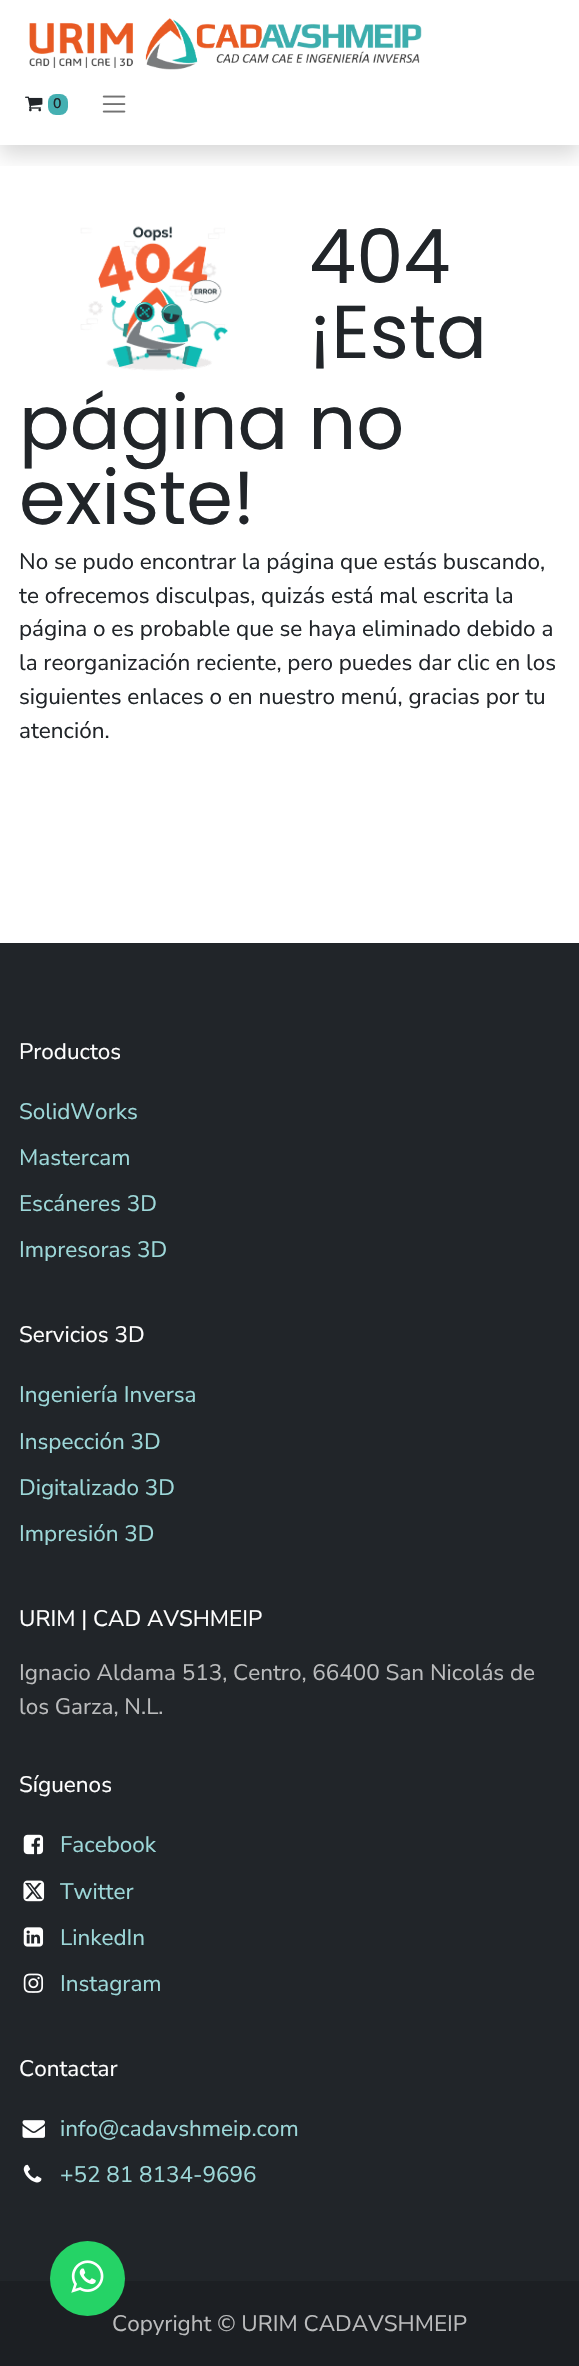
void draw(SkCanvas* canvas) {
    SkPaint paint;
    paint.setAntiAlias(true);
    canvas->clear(0xFFFFFFFF);
    canvas->save();
    canvas->clipRect(SkRect::MakeXYWH(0, 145, 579, 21));
    paint.setColor(0x26000000);
    paint.setMaskFilter(SkMaskFilter::MakeBlur(kNormal_SkBlurStyle, 10));
    canvas->drawRect(SkRect::MakeXYWH(0, 10, 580, 145), paint);
    paint.setMaskFilter(nullptr);
    canvas->restore();
    canvas->drawImageRect(SkImages::DeferredFromEncodedData(SkData::MakeFromFileName("img1.png")), SkRect::MakeXYWH(29, 18, 393, 52), SkSamplingOptions());
    canvas->drawImageRect(SkImages::DeferredFromEncodedData(SkData::MakeFromFileName("img2.png")), SkRect::MakeXYWH(25, 96, 18, 16), SkSamplingOptions());
    paint.setColor(0xFF45B0B2);
    canvas->drawRoundRect(SkRect::MakeXYWH(48, 94, 20, 21), 8, 8, paint);
    SkFont font1(fontMgr->matchFamilyStyle("Nunito Sans", SkFontStyle(600, SkFontStyle::kNormal_Width, SkFontStyle::kUpright_Slant)), 14);
    font1.setSubpixel(true);
    paint.setColor(0xFF212529);
    canvas->drawString("0", 53, 108, font1, paint);
    canvas->drawImageRect(SkImages::DeferredFromEncodedData(SkData::MakeFromFileName("img3.png")), SkRect::MakeXYWH(102, 95, 24, 18), SkSamplingOptions());
    canvas->drawImageRect(SkImages::DeferredFromEncodedData(SkData::MakeFromFileName("img4.png")), SkRect::MakeXYWH(80, 226, 148, 145), SkSamplingOptions());
    SkFont font2(fontMgr->matchFamilyStyle("Poppins", SkFontStyle::Normal()), 75);
    font2.setSubpixel(true);
    canvas->drawString("404", 309, 283, font2, paint);
    canvas->drawString("¡Esta", 309, 358, font2, paint);
    canvas->drawString("página no", 19, 449, font2, paint);
    canvas->drawString("existe!", 19, 524, font2, paint);
    SkFont font3(fontMgr->matchFamilyStyle("Nunito Sans", SkFontStyle::Normal()), 22.5f);
    font3.setSubpixel(true);
    canvas->drawString("No se pudo encontrar la página que estás buscando,", 19, 569, font3, paint);
    canvas->drawString("te ofrecemos disculpas, quizás está mal escrita la", 19, 603, font3, paint);
    canvas->drawString("página o es probable que se haya eliminado debido a", 19, 636, font3, paint);
    canvas->drawString("la reorganización reciente, pero puedes dar clic en los", 19, 670, font3, paint);
    canvas->drawString("siguientes enlaces o en nuestro menú, gracias por tu", 19, 704, font3, paint);
    canvas->drawString("atención.", 19, 738, font3, paint);
    canvas->drawRect(SkRect::MakeXYWH(0, 943, 579, 1338), paint);
    paint.setColor(0xFFFFFFFF);
    canvas->drawString("Productos", 19, 1059, font3, paint);
    paint.setColor(0xFF9DD8D9);
    canvas->drawString("SolidWorks", 19, 1119, font3, paint);
    canvas->drawString("Mastercam", 19, 1165, font3, paint);
    canvas->drawString("Escáneres 3D", 19, 1211, font3, paint);
    canvas->drawString("Impresoras 3D", 19, 1257, font3, paint);
    paint.setColor(0xFFFFFFFF);
    canvas->drawString("Servicios 3D", 19, 1342, font3, paint);
    paint.setColor(0xFF9DD8D9);
    canvas->drawString("Ingeniería Inversa", 19, 1402, font3, paint);
    canvas->drawString("Inspección 3D", 19, 1449, font3, paint);
    canvas->drawString("Digitalizado 3D", 19, 1495, font3, paint);
    canvas->drawString("Impresión 3D", 19, 1541, font3, paint);
    paint.setColor(0xFFFFFFFF);
    canvas->drawString("URIM | CAD AVSHMEIP", 19, 1626, font3, paint);
    paint.setColor(0xFFBBBCBD);
    canvas->drawString("Ignacio Aldama 513, Centro, 66400 San Nicolás de", 19, 1680, font3, paint);
    canvas->drawString("los Garza, N.L.", 19, 1714, font3, paint);
    paint.setColor(0xFFFFFFFF);
    canvas->drawString("Síguenos", 19, 1792, font3, paint);
    canvas->drawImageRect(SkImages::DeferredFromEncodedData(SkData::MakeFromFileName("img5.png")), SkRect::MakeXYWH(23, 1834, 21, 21), SkSamplingOptions());
    paint.setColor(0xFF9DD8D9);
    canvas->drawString("Facebook", 60, 1852, font3, paint);
    canvas->drawImageRect(SkImages::DeferredFromEncodedData(SkData::MakeFromFileName("img6.png")), SkRect::MakeXYWH(23, 1880, 22, 22), SkSamplingOptions());
    canvas->drawString("Twitter", 60, 1899, font3, paint);
    canvas->drawImageRect(SkImages::DeferredFromEncodedData(SkData::MakeFromFileName("img7.png")), SkRect::MakeXYWH(23, 1927, 21, 20), SkSamplingOptions());
    canvas->drawString("LinkedIn", 60, 1945, font3, paint);
    canvas->drawImageRect(SkImages::DeferredFromEncodedData(SkData::MakeFromFileName("img8.png")), SkRect::MakeXYWH(23, 1973, 21, 20), SkSamplingOptions());
    canvas->drawString("Instagram", 60, 1991, font3, paint);
    paint.setColor(0xFFFFFFFF);
    canvas->drawString("Contactar", 19, 2076, font3, paint);
    canvas->drawImageRect(SkImages::DeferredFromEncodedData(SkData::MakeFromFileName("img9.png")), SkRect::MakeXYWH(22, 2120, 23, 18), SkSamplingOptions());
    paint.setColor(0xFF9DD8D9);
    canvas->drawString("info@cadavshmeip.com", 60, 2136, font3, paint);
    canvas->drawImageRect(SkImages::DeferredFromEncodedData(SkData::MakeFromFileName("img10.png")), SkRect::MakeXYWH(23, 2164, 19, 19), SkSamplingOptions());
    canvas->drawString("+52 81 8134-9696", 60, 2182, font3, paint);
    paint.setColor(0xFF1C1F23);
    canvas->drawRect(SkRect::MakeXYWH(0, 2281, 579, 85), paint);
    paint.setColor(0xFFBBBCBD);
    canvas->drawString("Copyright © URIM CADAVSHMEIP", 112, 2331, font3, paint);
    paint.setColor(0xFF25D366);
    canvas->drawCircle(87.5f, 2278.5f, 37.5f, paint);
    canvas->drawImageRect(SkImages::DeferredFromEncodedData(SkData::MakeFromFileName("img11.png")), SkRect::MakeXYWH(71, 2260, 33, 33), SkSamplingOptions());
}
